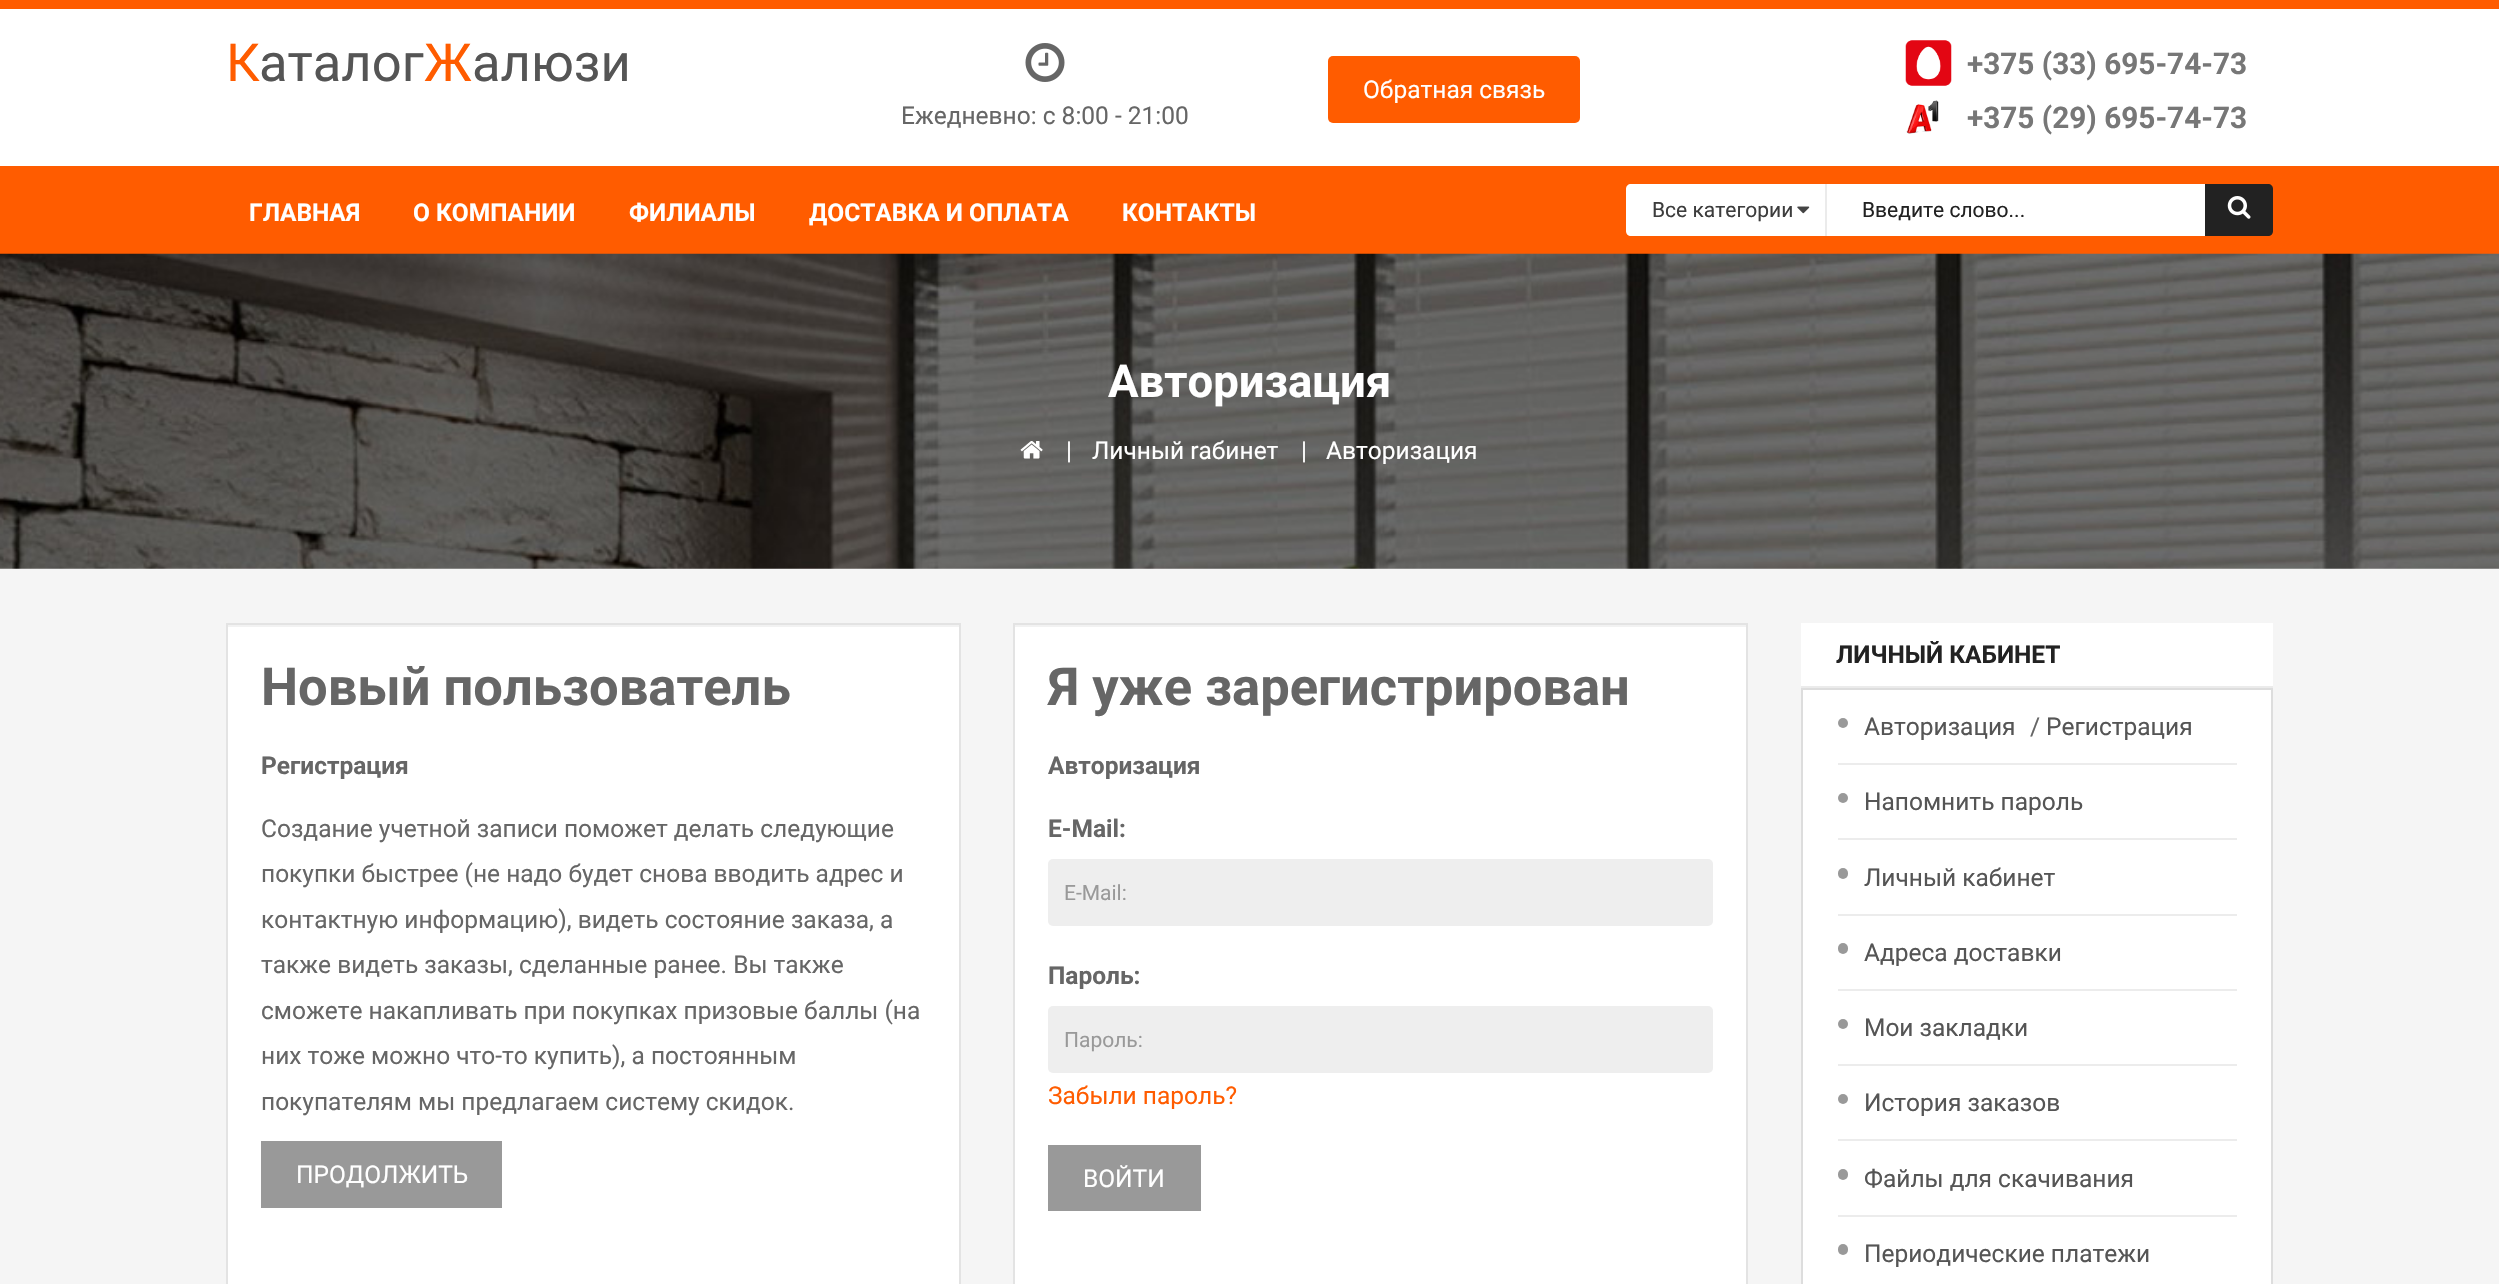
void draw(SkCanvas* canvas) {
    SkPaint paint;
    paint.setAntiAlias(true);
    canvas->clear(0xFFF5F5F5);
    paint.setColor(0xFFFFFFFF);
    canvas->drawRect(SkRect::MakeXYWH(0, 9, 2499, 157), paint);
    paint.setColor(0xFFFF5C00);
    canvas->drawRect(SkRect::MakeXYWH(0, 0, 2499, 9), paint);
    SkFont font1(fontMgr->matchFamilyStyle("Roboto", SkFontStyle::Normal()), 52.5f);
    font1.setSubpixel(true);
    canvas->drawString("К", 226, 81, font1, paint);
    paint.setColor(0xFF555555);
    canvas->drawString("аталог", 259, 81, font1, paint);
    paint.setColor(0xFFFF5C00);
    canvas->drawString("Ж", 424, 81, font1, paint);
    paint.setColor(0xFF555555);
    canvas->drawString("алюзи", 472, 81, font1, paint);
    paint.setColor(0xFFFF5C00);
    canvas->drawRoundRect(SkRect::MakeXYWH(1328, 56, 252, 67), 5, 5, paint);
    SkFont font2(fontMgr->matchFamilyStyle("Roboto", SkFontStyle::Normal()), 24.5f);
    font2.setSubpixel(true);
    paint.setColor(0xFFFFFFFF);
    canvas->drawString("Обратная связь", 1363, 98, font2, paint);
    canvas->drawImageRect(SkImages::DeferredFromEncodedData(SkData::MakeFromFileName("img1.png")), SkRect::MakeXYWH(1905, 40, 47, 46), SkSamplingOptions());
    SkFont font3(fontMgr->matchFamilyStyle("Roboto", SkFontStyle::Bold()), 29.75f);
    font3.setSubpixel(true);
    paint.setColor(0xFF777777);
    canvas->drawString("+375 (33) 695-74-73", 1967, 74, font3, paint);
    canvas->drawImageRect(SkImages::DeferredFromEncodedData(SkData::MakeFromFileName("img2.png")), SkRect::MakeXYWH(1906, 100, 33, 34), SkSamplingOptions());
    canvas->drawString("+375 (29) 695-74-73", 1967, 128, font3, paint);
    canvas->drawImageRect(SkImages::DeferredFromEncodedData(SkData::MakeFromFileName("img3.png")), SkRect::MakeXYWH(1025, 43, 40, 39), SkSamplingOptions());
    paint.setColor(0xFF666666);
    canvas->drawString("Ежедневно: с 8:00 - 21:00", 901, 124, font2, paint);
    paint.setColor(0xFFFF5C00);
    canvas->drawRect(SkRect::MakeXYWH(0, 166, 2499, 88), paint);
    SkFont font4(fontMgr->matchFamilyStyle("Roboto", SkFontStyle::Bold()), 24.5f);
    font4.setSubpixel(true);
    paint.setColor(0xFFFFFFFF);
    canvas->drawString("ГЛАВНАЯ", 249, 221, font4, paint);
    canvas->drawString("О КОМПАНИИ", 413, 221, font4, paint);
    canvas->drawString("ФИЛИАЛЫ", 629, 221, font4, paint);
    canvas->drawString("ДОСТАВКА И ОПЛАТА", 809, 221, font4, paint);
    canvas->drawString("КОНТАКТЫ", 1122, 221, font4, paint);
    canvas->drawPath(SkPathBuilder().moveTo(1631, 184).lineTo(1827, 184).lineTo(1827, 236).lineTo(1631, 236).cubicTo(1628, 236, 1626, 234, 1626, 231).lineTo(1626, 189).cubicTo(1626, 186, 1628, 184, 1631, 184).close().detach(), paint);
    paint.setColor(0xFFEBEBEB);
    canvas->drawRect(SkRect::MakeXYWH(1825, 184, 2, 52), paint);
    SkFont font5(fontMgr->matchFamilyStyle("Roboto", SkFontStyle::Normal()), 21);
    font5.setSubpixel(true);
    paint.setColor(0xFF3D3D3D);
    canvas->drawString("Все категории", 1652, 217, font5, paint);
    canvas->drawImageRect(SkImages::DeferredFromEncodedData(SkData::MakeFromFileName("img4.png")), SkRect::MakeXYWH(1797, 206, 13, 8), SkSamplingOptions());
    paint.setColor(0xFFFFFFFF);
    canvas->drawRect(SkRect::MakeXYWH(1827, 184, 378, 52), paint);
    paint.setColor(0xFF222222);
    canvas->drawString("Введите слово...", 1862, 217, font5, paint);
    canvas->drawPath(SkPathBuilder().moveTo(2205, 184).lineTo(2268, 184).cubicTo(2271, 184, 2273, 186, 2273, 189).lineTo(2273, 231).cubicTo(2273, 234, 2271, 236, 2268, 236).lineTo(2205, 236).close().detach(), paint);
    canvas->drawImageRect(SkImages::DeferredFromEncodedData(SkData::MakeFromFileName("img5.png")), SkRect::MakeXYWH(2227, 196, 24, 23), SkSamplingOptions());
    canvas->drawImageRect(SkImages::DeferredFromEncodedData(SkData::MakeFromFileName("img6.png")), SkRect::MakeXYWH(0, 253, 2499, 316), SkSamplingOptions());
    SkFont font6(fontMgr->matchFamilyStyle("Roboto", SkFontStyle::Bold()), 45.5f);
    font6.setSubpixel(true);
    paint.setColor(0xFFFFFFFF);
    canvas->drawString("Авторизация", 1108, 397, font6, paint);
    canvas->drawImageRect(SkImages::DeferredFromEncodedData(SkData::MakeFromFileName("img7.png")), SkRect::MakeXYWH(1020, 441, 23, 18), SkSamplingOptions());
    canvas->drawString("|", 1066, 459, font2, paint);
    canvas->drawString("Личный rабинет", 1092, 459, font2, paint);
    canvas->drawString("|", 1301, 459, font2, paint);
    canvas->drawString("Авторизация", 1326, 459, font2, paint);
    canvas->drawRect(SkRect::MakeXYWH(228, 627, 731, 657), paint);
    paint.setColor(0xFFF2F2F2);
    canvas->drawRect(SkRect::MakeXYWH(228, 625, 731, 2), paint);
    paint.setStyle(SkPaint::kStroke_Style);
    paint.setStrokeWidth(2);
    paint.setColor(0xFFE3E3E3);
    canvas->drawRect(SkRect::MakeXYWH(227, 624, 733, 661), paint);
    SkFont font7(fontMgr->matchFamilyStyle("Roboto", SkFontStyle::Bold()), 52.5f);
    font7.setSubpixel(true);
    paint.setStyle(SkPaint::kFill_Style);
    paint.setColor(0xFF666666);
    canvas->drawString("Новый пользователь", 261, 705, font7, paint);
    canvas->drawString("Регистрация", 261, 774, font4, paint);
    canvas->drawString("Создание учетной записи поможет делать следующие", 261, 837, font2, paint);
    canvas->drawString("покупки быстрее (не надо будет снова вводить адрес и", 261, 882, font2, paint);
    canvas->drawString("контактную информацию), видеть состояние заказа, а", 261, 928, font2, paint);
    canvas->drawString("также видеть заказы, сделанные ранее. Вы также", 261, 973, font2, paint);
    canvas->drawString("сможете накапливать при покупках призовые баллы (на", 261, 1019, font2, paint);
    canvas->drawString("них тоже можно что-то купить), а постоянным", 261, 1064, font2, paint);
    canvas->drawString("покупателям мы предлагаем систему скидок.", 261, 1110, font2, paint);
    paint.setColor(0xFF999999);
    canvas->drawRect(SkRect::MakeXYWH(261, 1141, 241, 67), paint);
    paint.setColor(0xFFFFFFFF);
    canvas->drawString("ПРОДОЛЖИТЬ", 296, 1183, font2, paint);
    canvas->drawRect(SkRect::MakeXYWH(1015, 627, 731, 657), paint);
    paint.setColor(0xFFF2F2F2);
    canvas->drawRect(SkRect::MakeXYWH(1015, 625, 732, 2), paint);
    paint.setStyle(SkPaint::kStroke_Style);
    paint.setColor(0xFFE3E3E3);
    canvas->drawRect(SkRect::MakeXYWH(1014, 624, 733, 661), paint);
    paint.setStyle(SkPaint::kFill_Style);
    paint.setColor(0xFF666666);
    canvas->drawString("Я уже зарегистрирован", 1048, 705, font7, paint);
    canvas->drawString("Авторизация", 1048, 774, font4, paint);
    canvas->drawString("E-Mail:", 1048, 837, font4, paint);
    paint.setColor(0xFFEEEEEE);
    canvas->drawRoundRect(SkRect::MakeXYWH(1048, 859, 665, 67), 5, 5, paint);
    paint.setColor(0xFF999999);
    canvas->drawString("E-Mail:", 1064, 900, font5, paint);
    paint.setColor(0xFF666666);
    canvas->drawString("Пароль:", 1048, 984, font4, paint);
    paint.setColor(0xFFEEEEEE);
    canvas->drawRoundRect(SkRect::MakeXYWH(1048, 1006, 665, 67), 5, 5, paint);
    paint.setColor(0xFF999999);
    canvas->drawString("Пароль:", 1064, 1047, font5, paint);
    paint.setColor(0xFFFF5C00);
    canvas->drawString("Забыли пароль?", 1048, 1104, font2, paint);
    paint.setColor(0xFF999999);
    canvas->drawRect(SkRect::MakeXYWH(1048, 1145, 153, 66), paint);
    paint.setColor(0xFFFFFFFF);
    canvas->drawString("ВОЙТИ", 1083, 1187, font2, paint);
    canvas->drawRect(SkRect::MakeXYWH(1801, 623, 472, 63), paint);
    paint.setColor(0xFFEBEBEB);
    canvas->drawRect(SkRect::MakeXYWH(1801, 686, 472, 2), paint);
    paint.setColor(0xFF222222);
    canvas->drawString("ЛИЧНЫЙ КАБИНЕТ", 1836, 663, font4, paint);
    paint.setColor(0xFFFFFFFF);
    canvas->drawRect(SkRect::MakeXYWH(1802, 689, 470, 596), paint);
    paint.setStyle(SkPaint::kStroke_Style);
    paint.setColor(0xFFDDDDDD);
    canvas->drawRect(SkRect::MakeXYWH(1802, 689, 470, 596), paint);
    paint.setStyle(SkPaint::kFill_Style);
    paint.setColor(0xFFECECEC);
    canvas->drawRect(SkRect::MakeXYWH(1838, 763, 399, 2), paint);
    paint.setColor(0xFF999999);
    canvas->drawCircle(1843, 723, 5, paint);
    paint.setColor(0xFF555555);
    canvas->drawString("Авторизация", 1864, 735, font2, paint);
    paint.setColor(0xFF666666);
    canvas->drawString("/", 2030, 735, font2, paint);
    paint.setColor(0xFF555555);
    canvas->drawString("Регистрация", 2046, 735, font2, paint);
    paint.setColor(0xFFECECEC);
    canvas->drawRect(SkRect::MakeXYWH(1838, 838, 399, 2), paint);
    paint.setColor(0xFF999999);
    canvas->drawCircle(1843, 798, 5, paint);
    paint.setColor(0xFF555555);
    canvas->drawString("Напомнить пароль", 1864, 810, font2, paint);
    paint.setColor(0xFFECECEC);
    canvas->drawRect(SkRect::MakeXYWH(1838, 914, 399, 2), paint);
    paint.setColor(0xFF999999);
    canvas->drawRoundRect(SkRect::MakeXYWH(1838, 868, 10, 11), 5, 5, paint);
    paint.setColor(0xFF555555);
    canvas->drawString("Личный кабинет", 1864, 886, font2, paint);
    paint.setColor(0xFFECECEC);
    canvas->drawRect(SkRect::MakeXYWH(1838, 989, 399, 2), paint);
    paint.setColor(0xFF999999);
    canvas->drawRoundRect(SkRect::MakeXYWH(1838, 943, 10, 11), 5, 5, paint);
    paint.setColor(0xFF555555);
    canvas->drawString("Адреса доставки", 1864, 961, font2, paint);
    paint.setColor(0xFFECECEC);
    canvas->drawRect(SkRect::MakeXYWH(1838, 1064, 399, 2), paint);
    paint.setColor(0xFF999999);
    canvas->drawCircle(1843, 1024, 5, paint);
    paint.setColor(0xFF555555);
    canvas->drawString("Мои закладки", 1864, 1036, font2, paint);
    paint.setColor(0xFFECECEC);
    canvas->drawRect(SkRect::MakeXYWH(1838, 1139, 399, 2), paint);
    paint.setColor(0xFF999999);
    canvas->drawCircle(1843, 1099, 5, paint);
    paint.setColor(0xFF555555);
    canvas->drawString("История заказов", 1864, 1111, font2, paint);
    paint.setColor(0xFFECECEC);
    canvas->drawRect(SkRect::MakeXYWH(1838, 1215, 399, 2), paint);
    paint.setColor(0xFF999999);
    canvas->drawRoundRect(SkRect::MakeXYWH(1838, 1169, 10, 11), 5, 5, paint);
    paint.setColor(0xFF555555);
    canvas->drawString("Файлы для скачивания", 1864, 1187, font2, paint);
    paint.setColor(0xFF999999);
    canvas->drawRoundRect(SkRect::MakeXYWH(1838, 1244, 10, 11), 5, 5, paint);
    paint.setColor(0xFF555555);
    canvas->drawString("Периодические платежи", 1864, 1262, font2, paint);
}
